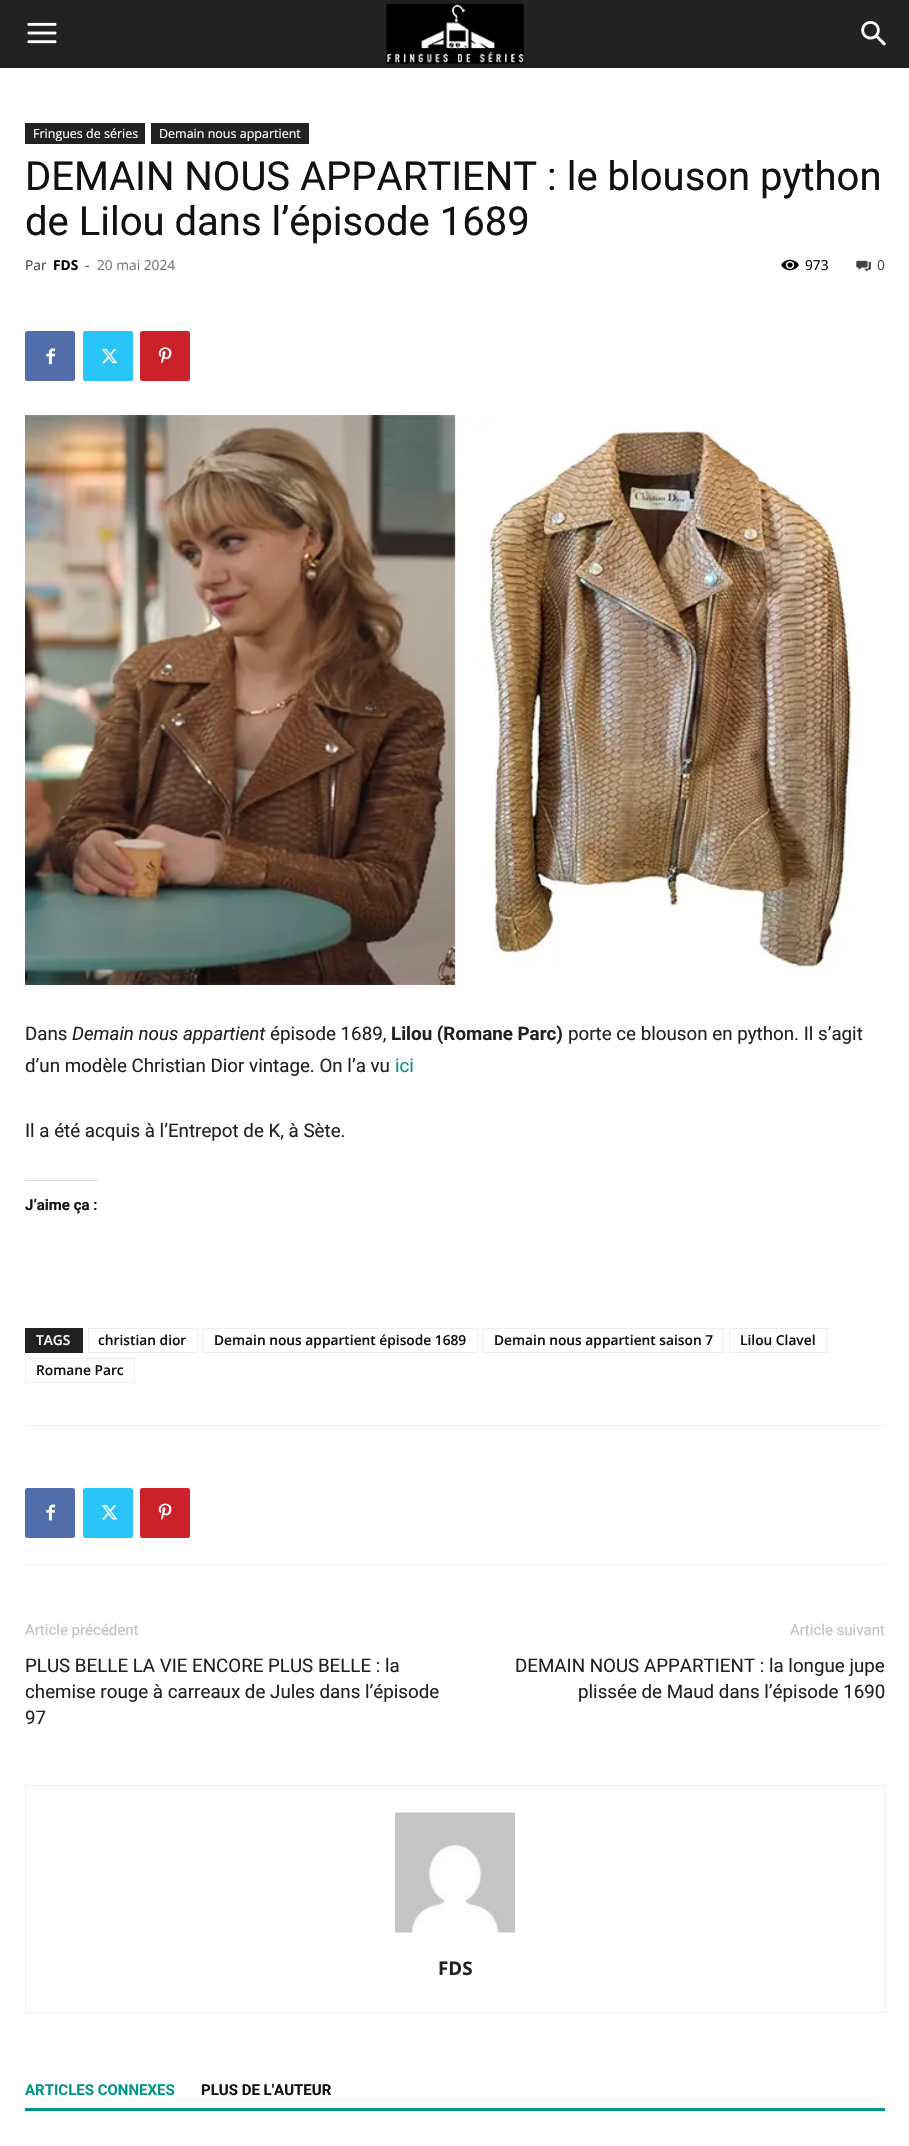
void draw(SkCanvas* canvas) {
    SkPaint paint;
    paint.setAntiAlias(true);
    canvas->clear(0xFFFFFFFF);
    paint.setColor(0xFF222222);
    canvas->drawRect(SkRect::MakeXYWH(0, 0, 909, 68), paint);
    canvas->drawImageRect(SkImages::DeferredFromEncodedData(SkData::MakeFromFileName("img1.png")), SkRect::MakeXYWH(27, 22, 30, 22), SkSamplingOptions());
    canvas->drawImageRect(SkImages::DeferredFromEncodedData(SkData::MakeFromFileName("img2.png")), SkRect::MakeXYWH(386, 3, 138, 61), SkSamplingOptions());
    canvas->drawImageRect(SkImages::DeferredFromEncodedData(SkData::MakeFromFileName("img3.png")), SkRect::MakeXYWH(861, 21, 25, 25), SkSamplingOptions());
    canvas->drawRect(SkRect::MakeXYWH(25, 123, 120, 21), paint);
    SkFont font1(fontMgr->matchFamilyStyle("Open Sans", SkFontStyle::Normal()), 12.5f);
    font1.setSubpixel(true);
    paint.setColor(0xFFFFFFFF);
    canvas->drawString("Fringues de séries", 33, 138, font1, paint);
    paint.setColor(0xFF222222);
    canvas->drawRect(SkRect::MakeXYWH(151, 123, 158, 21), paint);
    paint.setColor(0xFFFFFFFF);
    canvas->drawString("Demain nous appartient", 159, 138, font1, paint);
    SkFont font2(fontMgr->matchFamilyStyle("Roboto", SkFontStyle::Normal()), 40);
    font2.setSubpixel(true);
    paint.setColor(0xFF111111);
    canvas->drawString("DEMAIN NOUS APPARTIENT : le blouson python", 25, 190, font2, paint);
    canvas->drawString("de Lilou dans l’épisode 1689", 25, 235, font2, paint);
    SkFont font3(fontMgr->matchFamilyStyle("Open Sans", SkFontStyle::Normal()), 13.75f);
    font3.setSubpixel(true);
    paint.setColor(0xFF444444);
    canvas->drawString("Par", 25, 270, font3, paint);
    SkFont font4(fontMgr->matchFamilyStyle("Open Sans", SkFontStyle::Bold()), 13.75f);
    font4.setSubpixel(true);
    paint.setColor(0xFF000000);
    canvas->drawString("FDS", 53, 270, font4, paint);
    paint.setColor(0xFF444444);
    canvas->drawString("-", 85, 270, font3, paint);
    paint.setColor(0xFF767676);
    canvas->drawString("20 mai 2024", 97, 270, font3, paint);
    canvas->drawImageRect(SkImages::DeferredFromEncodedData(SkData::MakeFromFileName("img4.png")), SkRect::MakeXYWH(781, 259, 18, 12), SkSamplingOptions());
    paint.setColor(0xFF000000);
    canvas->drawString("973", 805, 270, font3, paint);
    canvas->drawImageRect(SkImages::DeferredFromEncodedData(SkData::MakeFromFileName("img5.png")), SkRect::MakeXYWH(856, 260, 15, 12), SkSamplingOptions());
    paint.setColor(0xFF444444);
    canvas->drawString("0", 877, 270, font3, paint);
    paint.setColor(0xFF516EAB);
    canvas->drawRoundRect(SkRect::MakeXYWH(25, 331, 50, 50), 2.5f, 2.5f, paint);
    canvas->drawImageRect(SkImages::DeferredFromEncodedData(SkData::MakeFromFileName("img6.png")), SkRect::MakeXYWH(46, 348, 9, 17), SkSamplingOptions());
    paint.setColor(0xFF29C5F6);
    canvas->drawRoundRect(SkRect::MakeXYWH(83, 331, 50, 50), 2.5f, 2.5f, paint);
    canvas->drawImageRect(SkImages::DeferredFromEncodedData(SkData::MakeFromFileName("img7.png")), SkRect::MakeXYWH(101, 349, 17, 15), SkSamplingOptions());
    paint.setColor(0xFFCA212A);
    canvas->drawRoundRect(SkRect::MakeXYWH(140, 331, 50, 50), 2.5f, 2.5f, paint);
    canvas->drawImageRect(SkImages::DeferredFromEncodedData(SkData::MakeFromFileName("img8.png")), SkRect::MakeXYWH(158, 347, 14, 17), SkSamplingOptions());
    canvas->drawImageRect(SkImages::DeferredFromEncodedData(SkData::MakeFromFileName("img9.png")), SkRect::MakeXYWH(25, 415, 830, 570), SkSamplingOptions());
    SkFont font5(fontMgr->matchFamilyStyle("Roboto", SkFontStyle::Normal()), 18.75f);
    font5.setSubpixel(true);
    paint.setColor(0xFF222222);
    canvas->drawString("Dans", 25, 1040, font5, paint);
    SkFont font6(fontMgr->matchFamilyStyle("Roboto", SkFontStyle::Italic()), 18.75f);
    font6.setSubpixel(true);
    canvas->drawString("Demain nous appartient", 72, 1040, font6, paint);
    canvas->drawString("épisode 1689,", 270, 1040, font5, paint);
    SkFont font7(fontMgr->matchFamilyStyle("Roboto", SkFontStyle::Bold()), 18.75f);
    font7.setSubpixel(true);
    canvas->drawString("Lilou (Romane Parc)", 391, 1040, font7, paint);
    canvas->drawString("porte ce blouson en python. Il s’agit", 568, 1040, font5, paint);
    canvas->drawString("d’un modèle Christian Dior vintage. On l’a vu", 25, 1072, font5, paint);
    paint.setColor(0xFF009688);
    canvas->drawString("ici", 395, 1072, font5, paint);
    paint.setColor(0xFF222222);
    canvas->drawString("Il a été acquis à l’Entrepot de K, à Sète.", 25, 1137, font5, paint);
    paint.setColor(0xFFDCDCDE);
    canvas->drawRect(SkRect::MakeXYWH(25, 1180, 73, 1), paint);
    SkFont font8(fontMgr->matchFamilyStyle("Roboto", SkFontStyle::Bold()), 15);
    font8.setSubpixel(true);
    paint.setColor(0xFF111111);
    canvas->drawString("J’aime ça :", 25, 1210, font8, paint);
    paint.setColor(0xFF222222);
    canvas->drawRect(SkRect::MakeXYWH(25, 1328, 58, 25), paint);
    SkFont font9(fontMgr->matchFamilyStyle("Open Sans", SkFontStyle(600, SkFontStyle::kNormal_Width, SkFontStyle::kUpright_Slant)), 13.75f);
    font9.setSubpixel(true);
    paint.setColor(0xFFFFFFFF);
    canvas->drawString("TAGS", 36, 1345, font9, paint);
    paint.setStyle(SkPaint::kStroke_Style);
    paint.setStrokeWidth(1);
    paint.setColor(0xFFEDEDED);
    canvas->drawRect(SkRect::MakeXYWH(88.5f, 1328.5f, 109, 24), paint);
    paint.setStyle(SkPaint::kFill_Style);
    paint.setColor(0xFF111111);
    canvas->drawString("christian dior", 98, 1345, font9, paint);
    paint.setStyle(SkPaint::kStroke_Style);
    paint.setColor(0xFFEDEDED);
    canvas->drawRect(SkRect::MakeXYWH(203.5f, 1328.5f, 274, 24), paint);
    paint.setStyle(SkPaint::kFill_Style);
    paint.setColor(0xFF111111);
    canvas->drawString("Demain nous appartient épisode 1689", 214, 1345, font9, paint);
    paint.setStyle(SkPaint::kStroke_Style);
    paint.setColor(0xFFEDEDED);
    canvas->drawRect(SkRect::MakeXYWH(483.5f, 1328.5f, 240, 24), paint);
    paint.setStyle(SkPaint::kFill_Style);
    paint.setColor(0xFF111111);
    canvas->drawString("Demain nous appartient saison 7", 494, 1345, font9, paint);
    paint.setStyle(SkPaint::kStroke_Style);
    paint.setColor(0xFFEDEDED);
    canvas->drawRect(SkRect::MakeXYWH(729.5f, 1328.5f, 98, 24), paint);
    paint.setStyle(SkPaint::kFill_Style);
    paint.setColor(0xFF111111);
    canvas->drawString("Lilou Clavel", 740, 1345, font9, paint);
    paint.setStyle(SkPaint::kStroke_Style);
    paint.setColor(0xFFEDEDED);
    canvas->drawRect(SkRect::MakeXYWH(25.5f, 1358.5f, 109, 24), paint);
    paint.setStyle(SkPaint::kFill_Style);
    paint.setColor(0xFF111111);
    canvas->drawString("Romane Parc", 36, 1375, font9, paint);
    paint.setColor(0xFFEDEDED);
    canvas->drawRect(SkRect::MakeXYWH(25, 1425, 860, 1), paint);
    canvas->drawRect(SkRect::MakeXYWH(25, 1564, 860, 1), paint);
    paint.setColor(0xFF516EAB);
    canvas->drawRoundRect(SkRect::MakeXYWH(25, 1488, 50, 50), 2.5f, 2.5f, paint);
    canvas->drawImageRect(SkImages::DeferredFromEncodedData(SkData::MakeFromFileName("img10.png")), SkRect::MakeXYWH(46, 1504, 9, 17), SkSamplingOptions());
    paint.setColor(0xFF29C5F6);
    canvas->drawRoundRect(SkRect::MakeXYWH(83, 1488, 50, 50), 2.5f, 2.5f, paint);
    canvas->drawImageRect(SkImages::DeferredFromEncodedData(SkData::MakeFromFileName("img11.png")), SkRect::MakeXYWH(101, 1505, 17, 15), SkSamplingOptions());
    paint.setColor(0xFFCA212A);
    canvas->drawRoundRect(SkRect::MakeXYWH(140, 1488, 50, 50), 2.5f, 2.5f, paint);
    canvas->drawImageRect(SkImages::DeferredFromEncodedData(SkData::MakeFromFileName("img12.png")), SkRect::MakeXYWH(158, 1503, 14, 17), SkSamplingOptions());
    SkFont font10(fontMgr->matchFamilyStyle("Roboto", SkFontStyle::Normal()), 15);
    font10.setSubpixel(true);
    paint.setColor(0xFFC1C1C1);
    canvas->drawString("Article précédent", 25, 1635, font10, paint);
    paint.setColor(0xFF222222);
    canvas->drawString("PLUS BELLE LA VIE ENCORE PLUS BELLE : la", 25, 1672, font5, paint);
    canvas->drawString("chemise rouge à carreaux de Jules dans l’épisode", 25, 1698, font5, paint);
    canvas->drawString("97", 25, 1724, font5, paint);
    paint.setColor(0xFFC1C1C1);
    canvas->drawString("Article suivant", 790, 1635, font10, paint);
    paint.setColor(0xFF222222);
    canvas->drawString("DEMAIN NOUS APPARTIENT : la longue jupe", 515, 1672, font5, paint);
    canvas->drawString("plissée de Maud dans l’épisode 1690", 578, 1698, font5, paint);
    paint.setStyle(SkPaint::kStroke_Style);
    paint.setColor(0xFFEDEDED);
    canvas->drawRect(SkRect::MakeXYWH(25.5f, 1785.5f, 859, 227), paint);
    canvas->drawImageRect(SkImages::DeferredFromEncodedData(SkData::MakeFromFileName("img13.png")), SkRect::MakeXYWH(395, 1812, 120, 121), SkSamplingOptions());
    SkFont font11(fontMgr->matchFamilyStyle("Open Sans", SkFontStyle::Bold()), 18.75f);
    font11.setSubpixel(true);
    paint.setStyle(SkPaint::kFill_Style);
    paint.setColor(0xFF222222);
    canvas->drawString("FDS", 438, 1975, font11, paint);
    paint.setColor(0xFF009688);
    canvas->drawRect(SkRect::MakeXYWH(25, 2108, 860, 3), paint);
    canvas->drawString("ARTICLES CONNEXES", 25, 2095, font8, paint);
    paint.setColor(0xFF111111);
    canvas->drawString("PLUS DE L'AUTEUR", 201, 2095, font8, paint);
}
